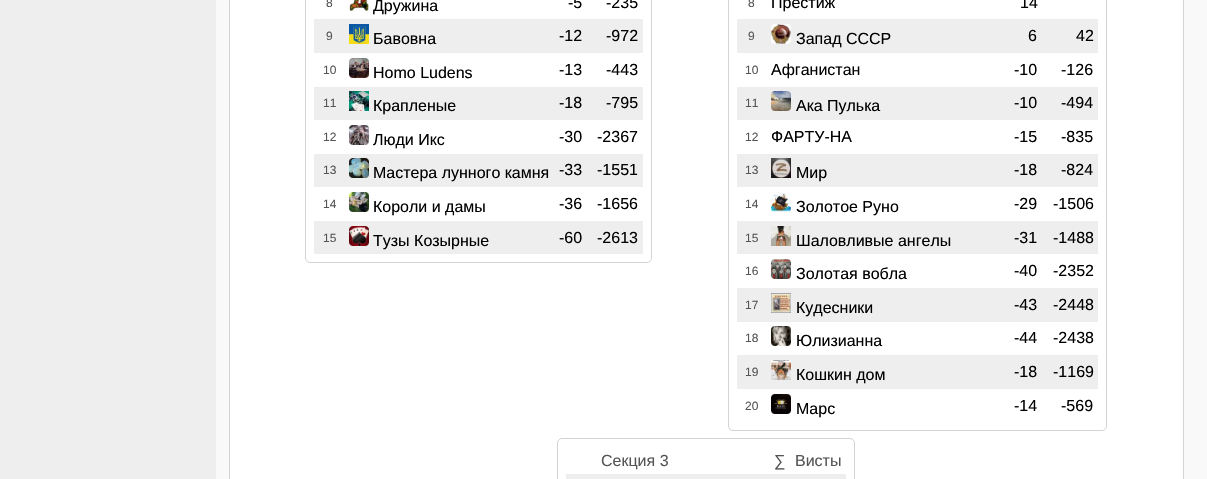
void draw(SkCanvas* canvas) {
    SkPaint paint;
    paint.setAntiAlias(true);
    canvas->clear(0xFFF9F9F9);
    paint.setColor(0xFFEEEEEE);
    canvas->drawRect(SkRect::MakeXYWH(0, 0, 216, 479), paint);
    paint.setColor(0xFFFFFFFF);
    canvas->drawRect(SkRect::MakeXYWH(229.5f, -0.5f, 954, 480), paint);
    paint.setStyle(SkPaint::kStroke_Style);
    paint.setStrokeWidth(1);
    paint.setColor(0xFFD3D3D3);
    canvas->drawRect(SkRect::MakeXYWH(229.5f, -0.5f, 954, 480), paint);
    canvas->drawRoundRect(SkRect::MakeXYWH(305.5f, -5.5f, 346, 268), 4.5f, 4.5f, paint);
    SkFont font1(fontMgr->matchFamilyStyle("Liberation Sans", SkFontStyle::Normal()), 12);
    font1.setSubpixel(true);
    paint.setStyle(SkPaint::kFill_Style);
    paint.setColor(0xFF555555);
    canvas->drawString("8", 326, 7, font1, paint);
    canvas->drawImageRect(SkImages::DeferredFromEncodedData(SkData::MakeFromFileName("img1.png")), SkRect::MakeXYWH(349, 0, 20, 11), SkSamplingOptions());
    SkFont font2(fontMgr->matchFamilyStyle("Liberation Sans", SkFontStyle::Normal()), 16);
    font2.setSubpixel(true);
    paint.setColor(0xFF000000);
    canvas->drawString("Дружина", 373, 11, font2, paint);
    canvas->drawString("-5", 568, 8, font2, paint);
    canvas->drawString("-235", 606, 8, font2, paint);
    paint.setColor(0xFFEEEEEE);
    canvas->drawRect(SkRect::MakeXYWH(314, 19, 329, 34), paint);
    paint.setColor(0xFF555555);
    canvas->drawString("9", 326, 40, font1, paint);
    canvas->drawImageRect(SkImages::DeferredFromEncodedData(SkData::MakeFromFileName("img2.png")), SkRect::MakeXYWH(349, 24, 20, 20), SkSamplingOptions());
    paint.setColor(0xFF000000);
    canvas->drawString("Бавовна", 373, 44, font2, paint);
    canvas->drawString("-12", 559, 41, font2, paint);
    canvas->drawString("-972", 606, 41, font2, paint);
    paint.setColor(0xFF555555);
    canvas->drawString("10", 323, 74, font1, paint);
    canvas->drawImageRect(SkImages::DeferredFromEncodedData(SkData::MakeFromFileName("img3.png")), SkRect::MakeXYWH(349, 58, 20, 20), SkSamplingOptions());
    paint.setColor(0xFF000000);
    canvas->drawString("Homo Ludens", 373, 78, font2, paint);
    canvas->drawString("-13", 559, 75, font2, paint);
    canvas->drawString("-443", 606, 75, font2, paint);
    paint.setColor(0xFFEEEEEE);
    canvas->drawRect(SkRect::MakeXYWH(314, 87, 329, 33), paint);
    paint.setColor(0xFF555555);
    canvas->drawString("11", 323, 107, font1, paint);
    canvas->drawImageRect(SkImages::DeferredFromEncodedData(SkData::MakeFromFileName("img4.png")), SkRect::MakeXYWH(349, 91, 20, 20), SkSamplingOptions());
    paint.setColor(0xFF000000);
    canvas->drawString("Крапленые", 373, 111, font2, paint);
    canvas->drawString("-18", 559, 108, font2, paint);
    canvas->drawString("-795", 606, 108, font2, paint);
    paint.setColor(0xFF555555);
    canvas->drawString("12", 323, 141, font1, paint);
    canvas->drawImageRect(SkImages::DeferredFromEncodedData(SkData::MakeFromFileName("img5.png")), SkRect::MakeXYWH(349, 125, 20, 20), SkSamplingOptions());
    paint.setColor(0xFF000000);
    canvas->drawString("Люди Икс", 373, 145, font2, paint);
    canvas->drawString("-30", 559, 142, font2, paint);
    canvas->drawString("-2367", 597, 142, font2, paint);
    paint.setColor(0xFFEEEEEE);
    canvas->drawRect(SkRect::MakeXYWH(314, 154, 329, 33), paint);
    paint.setColor(0xFF555555);
    canvas->drawString("13", 323, 174, font1, paint);
    canvas->drawImageRect(SkImages::DeferredFromEncodedData(SkData::MakeFromFileName("img6.png")), SkRect::MakeXYWH(349, 158, 20, 20), SkSamplingOptions());
    paint.setColor(0xFF000000);
    canvas->drawString("Мастера лунного камня", 373, 178, font2, paint);
    canvas->drawString("-33", 559, 175, font2, paint);
    canvas->drawString("-1551", 597, 175, font2, paint);
    paint.setColor(0xFF555555);
    canvas->drawString("14", 323, 208, font1, paint);
    canvas->drawImageRect(SkImages::DeferredFromEncodedData(SkData::MakeFromFileName("img7.png")), SkRect::MakeXYWH(349, 192, 20, 20), SkSamplingOptions());
    paint.setColor(0xFF000000);
    canvas->drawString("Короли и дамы", 373, 212, font2, paint);
    canvas->drawString("-36", 559, 209, font2, paint);
    canvas->drawString("-1656", 597, 209, font2, paint);
    paint.setColor(0xFFEEEEEE);
    canvas->drawRect(SkRect::MakeXYWH(314, 221, 329, 33), paint);
    paint.setColor(0xFF555555);
    canvas->drawString("15", 323, 242, font1, paint);
    canvas->drawImageRect(SkImages::DeferredFromEncodedData(SkData::MakeFromFileName("img8.png")), SkRect::MakeXYWH(349, 226, 20, 20), SkSamplingOptions());
    paint.setColor(0xFF000000);
    canvas->drawString("Тузы Козырные", 373, 246, font2, paint);
    canvas->drawString("-60", 559, 243, font2, paint);
    canvas->drawString("-2613", 597, 243, font2, paint);
    paint.setStyle(SkPaint::kStroke_Style);
    paint.setColor(0xFFD3D3D3);
    canvas->drawRoundRect(SkRect::MakeXYWH(728.5f, -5.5f, 378, 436), 4.5f, 4.5f, paint);
    paint.setStyle(SkPaint::kFill_Style);
    paint.setColor(0xFF555555);
    canvas->drawString("8", 748, 7, font1, paint);
    paint.setColor(0xFF000000);
    canvas->drawString("Престиж", 771, 8, font2, paint);
    canvas->drawString("14", 1020, 8, font2, paint);
    paint.setColor(0xFFEEEEEE);
    canvas->drawRect(SkRect::MakeXYWH(737, 19, 361, 34), paint);
    paint.setColor(0xFF555555);
    canvas->drawString("9", 748, 40, font1, paint);
    canvas->drawImageRect(SkImages::DeferredFromEncodedData(SkData::MakeFromFileName("img9.png")), SkRect::MakeXYWH(771, 24, 20, 20), SkSamplingOptions());
    paint.setColor(0xFF000000);
    canvas->drawString("Запад СССР", 796, 44, font2, paint);
    canvas->drawString("6", 1028, 41, font2, paint);
    canvas->drawString("42", 1076, 41, font2, paint);
    paint.setColor(0xFF555555);
    canvas->drawString("10", 745, 74, font1, paint);
    paint.setColor(0xFF000000);
    canvas->drawString("Афганистан", 771, 75, font2, paint);
    canvas->drawString("-10", 1014, 75, font2, paint);
    canvas->drawString("-126", 1061, 75, font2, paint);
    paint.setColor(0xFFEEEEEE);
    canvas->drawRect(SkRect::MakeXYWH(737, 87, 361, 33), paint);
    paint.setColor(0xFF555555);
    canvas->drawString("11", 745, 107, font1, paint);
    canvas->drawImageRect(SkImages::DeferredFromEncodedData(SkData::MakeFromFileName("img10.png")), SkRect::MakeXYWH(771, 91, 20, 20), SkSamplingOptions());
    paint.setColor(0xFF000000);
    canvas->drawString("Ака Пулька", 796, 111, font2, paint);
    canvas->drawString("-10", 1014, 108, font2, paint);
    canvas->drawString("-494", 1061, 108, font2, paint);
    paint.setColor(0xFF555555);
    canvas->drawString("12", 745, 141, font1, paint);
    paint.setColor(0xFF000000);
    canvas->drawString("ФАРТУ-НА", 771, 142, font2, paint);
    canvas->drawString("-15", 1014, 142, font2, paint);
    canvas->drawString("-835", 1061, 142, font2, paint);
    paint.setColor(0xFFEEEEEE);
    canvas->drawRect(SkRect::MakeXYWH(737, 154, 361, 33), paint);
    paint.setColor(0xFF555555);
    canvas->drawString("13", 745, 174, font1, paint);
    canvas->drawImageRect(SkImages::DeferredFromEncodedData(SkData::MakeFromFileName("img11.png")), SkRect::MakeXYWH(771, 158, 20, 20), SkSamplingOptions());
    paint.setColor(0xFF000000);
    canvas->drawString("Мир", 796, 178, font2, paint);
    canvas->drawString("-18", 1014, 175, font2, paint);
    canvas->drawString("-824", 1061, 175, font2, paint);
    paint.setColor(0xFF555555);
    canvas->drawString("14", 745, 208, font1, paint);
    canvas->drawImageRect(SkImages::DeferredFromEncodedData(SkData::MakeFromFileName("img12.png")), SkRect::MakeXYWH(771, 193, 20, 19), SkSamplingOptions());
    paint.setColor(0xFF000000);
    canvas->drawString("Золотое Руно", 796, 212, font2, paint);
    canvas->drawString("-29", 1014, 209, font2, paint);
    canvas->drawString("-1506", 1053, 209, font2, paint);
    paint.setColor(0xFFEEEEEE);
    canvas->drawRect(SkRect::MakeXYWH(737, 221, 361, 33), paint);
    paint.setColor(0xFF555555);
    canvas->drawString("15", 745, 242, font1, paint);
    canvas->drawImageRect(SkImages::DeferredFromEncodedData(SkData::MakeFromFileName("img13.png")), SkRect::MakeXYWH(771, 226, 20, 20), SkSamplingOptions());
    paint.setColor(0xFF000000);
    canvas->drawString("Шаловливые ангелы", 796, 246, font2, paint);
    canvas->drawString("-31", 1014, 243, font2, paint);
    canvas->drawString("-1488", 1053, 243, font2, paint);
    paint.setColor(0xFF555555);
    canvas->drawString("16", 745, 275, font1, paint);
    canvas->drawImageRect(SkImages::DeferredFromEncodedData(SkData::MakeFromFileName("img14.png")), SkRect::MakeXYWH(771, 259, 20, 20), SkSamplingOptions());
    paint.setColor(0xFF000000);
    canvas->drawString("Золотая вобла", 796, 279, font2, paint);
    canvas->drawString("-40", 1014, 276, font2, paint);
    canvas->drawString("-2352", 1053, 276, font2, paint);
    paint.setColor(0xFFEEEEEE);
    canvas->drawRect(SkRect::MakeXYWH(737, 288, 361, 34), paint);
    paint.setColor(0xFF555555);
    canvas->drawString("17", 745, 309, font1, paint);
    canvas->drawImageRect(SkImages::DeferredFromEncodedData(SkData::MakeFromFileName("img15.png")), SkRect::MakeXYWH(771, 293, 20, 20), SkSamplingOptions());
    paint.setColor(0xFF000000);
    canvas->drawString("Кудесники", 796, 313, font2, paint);
    canvas->drawString("-43", 1014, 310, font2, paint);
    canvas->drawString("-2448", 1053, 310, font2, paint);
    paint.setColor(0xFF555555);
    canvas->drawString("18", 745, 342, font1, paint);
    canvas->drawImageRect(SkImages::DeferredFromEncodedData(SkData::MakeFromFileName("img16.png")), SkRect::MakeXYWH(771, 326, 20, 20), SkSamplingOptions());
    paint.setColor(0xFF000000);
    canvas->drawString("Юлизианна", 796, 346, font2, paint);
    canvas->drawString("-44", 1014, 343, font2, paint);
    canvas->drawString("-2438", 1053, 343, font2, paint);
    paint.setColor(0xFFEEEEEE);
    canvas->drawRect(SkRect::MakeXYWH(737, 355, 361, 34), paint);
    paint.setColor(0xFF555555);
    canvas->drawString("19", 745, 376, font1, paint);
    canvas->drawImageRect(SkImages::DeferredFromEncodedData(SkData::MakeFromFileName("img17.png")), SkRect::MakeXYWH(771, 360, 20, 20), SkSamplingOptions());
    paint.setColor(0xFF000000);
    canvas->drawString("Кошкин дом", 796, 380, font2, paint);
    canvas->drawString("-18", 1014, 377, font2, paint);
    canvas->drawString("-1169", 1053, 377, font2, paint);
    paint.setColor(0xFF555555);
    canvas->drawString("20", 745, 410, font1, paint);
    canvas->drawImageRect(SkImages::DeferredFromEncodedData(SkData::MakeFromFileName("img18.png")), SkRect::MakeXYWH(771, 394, 20, 20), SkSamplingOptions());
    paint.setColor(0xFF000000);
    canvas->drawString("Марс", 796, 414, font2, paint);
    canvas->drawString("-14", 1014, 411, font2, paint);
    canvas->drawString("-569", 1061, 411, font2, paint);
    paint.setStyle(SkPaint::kStroke_Style);
    paint.setColor(0xFFD3D3D3);
    canvas->drawRoundRect(SkRect::MakeXYWH(557.5f, 438.5f, 297, 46), 4.5f, 4.5f, paint);
    paint.setStyle(SkPaint::kFill_Style);
    paint.setColor(0xFF555555);
    canvas->drawString("Секция 3", 601, 466, font2, paint);
    canvas->drawString("∑", 774, 466, font2, paint);
    canvas->drawString("Висты", 795, 466, font2, paint);
    paint.setColor(0xFFEEEEEE);
    canvas->drawRect(SkRect::MakeXYWH(566, 474, 280, 5), paint);
}
